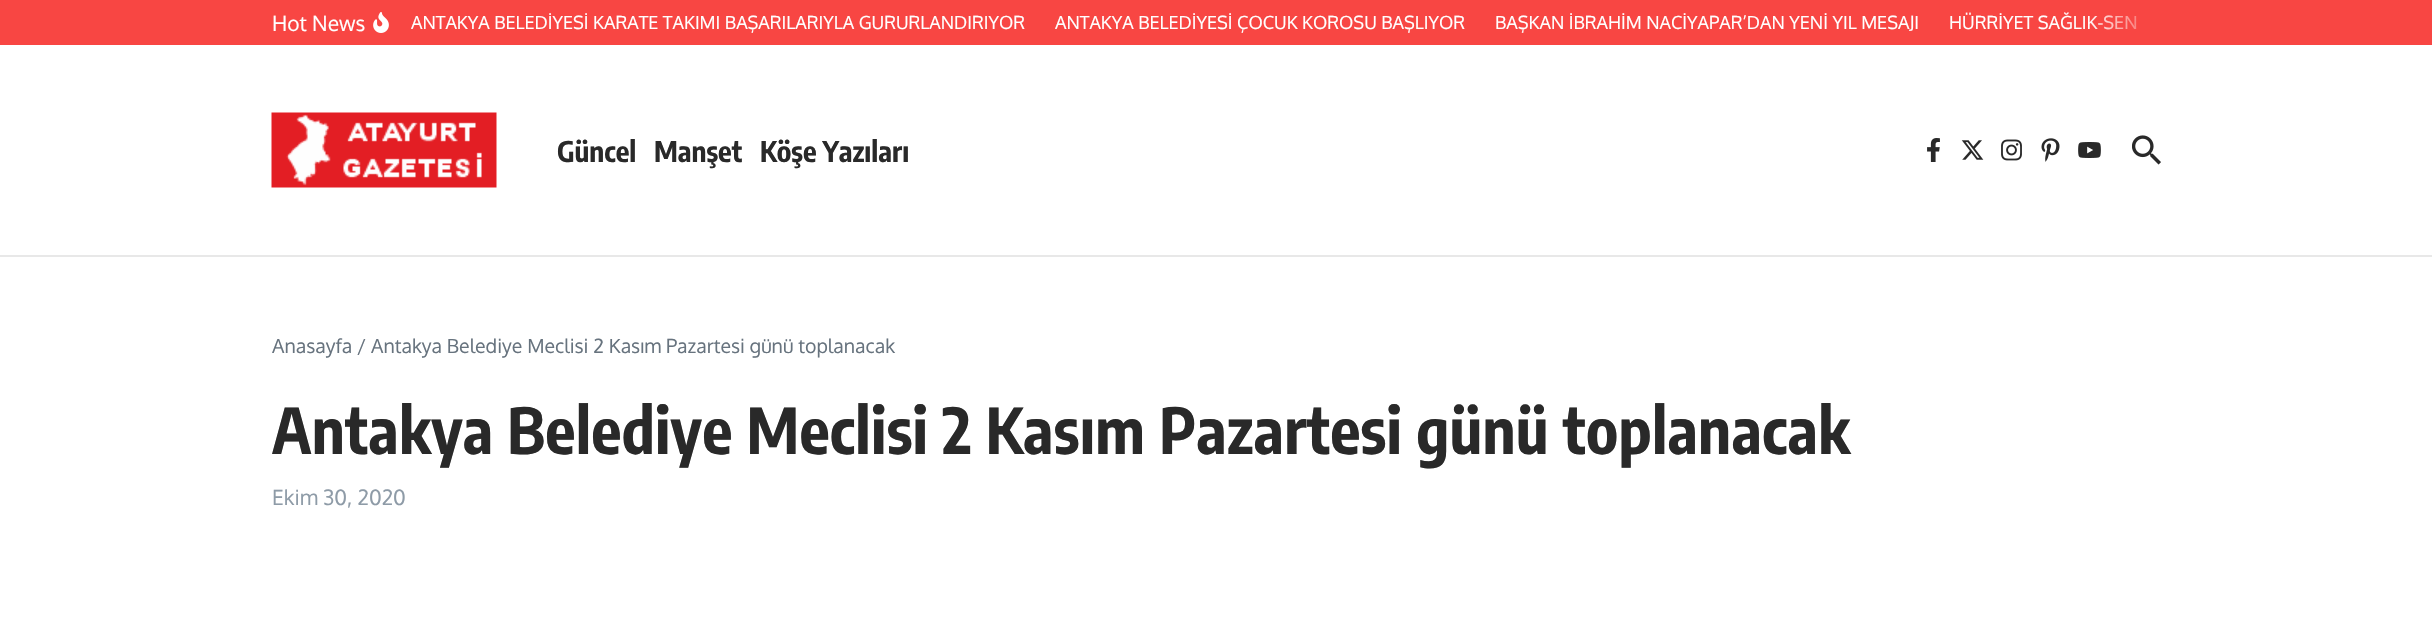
void draw(SkCanvas* canvas) {
    SkPaint paint;
    paint.setAntiAlias(true);
    auto spacedText = [&](const char* s, float x, float y, const SkFont& font, const SkPaint& ink, float letter, float word) {
        std::vector<SkGlyphID> glyphs(font.countText(s, strlen(s), SkTextEncoding::kUTF8));
        std::vector<float> xs(glyphs.size());
        font.textToGlyphs(s, strlen(s), SkTextEncoding::kUTF8, glyphs);
        font.getXPos(glyphs, xs, x);
        float extra = 0;
        for (size_t i = 0; i < glyphs.size(); i++) {
            xs[i] += extra;
            extra += letter + word * (glyphs[i] == font.unicharToGlyph(' '));
        }
        canvas->drawTextBlob(SkTextBlob::MakeFromPosHGlyphs(glyphs, xs, y, font), 0, 0, ink);
    };
    canvas->clear(0xFFFFFFFF);
    paint.setColor(0xFFF84643);
    canvas->drawRect(SkRect::MakeXYWH(0, 0, 2432, 45), paint);
    SkFont font1(fontMgr->matchFamilyStyle("Oxygen", SkFontStyle::Normal()), 21);
    font1.setSubpixel(true);
    paint.setColor(0xFFFFFFFF);
    canvas->drawString("Hot News", 272, 31, font1, paint);
    canvas->drawImageRect(SkImages::DeferredFromEncodedData(SkData::MakeFromFileName("img1.png")), SkRect::MakeXYWH(373, 12, 16, 21), SkSamplingOptions());
    SkFont font2(fontMgr->matchFamilyStyle("Oxygen", SkFontStyle::Normal()), 18);
    font2.setSubpixel(true);
    canvas->drawString("ANTAKYA BELEDİYESİ KARATE TAKIMI BAŞARILARIYLA GURURLANDIRIYOR", 411, 29, font2, paint);
    canvas->drawString("ANTAKYA BELEDİYESİ ÇOCUK KOROSU BAŞLIYOR", 1055, 29, font2, paint);
    canvas->drawString("BAŞKAN İBRAHİM NACİYAPAR’DAN YENİ YIL MESAJI", 1495, 29, font2, paint);
    canvas->drawString("HÜRRİYET SAĞLIK-SEN", 1949, 29, font2, paint);
    {
        const SkColor colors[] = {0x00F84643, 0xFFF84643};
        const float stops[] = {0, 1};
        const SkPoint ends[] = {{2087, 23}, {2162, 23}};
        paint.setShader(SkGradientShader::MakeLinear(ends, colors, stops, 2, SkTileMode::kClamp));
        paint.setAlpha(255);
    }
    canvas->drawRect(SkRect::MakeXYWH(2089, 15, 48, 15), paint);
    paint.setShader(nullptr);
    paint.setColor(0xFFE8E8E8);
    canvas->drawRect(SkRect::MakeXYWH(0, 255, 2432, 2), paint);
    canvas->drawImageRect(SkImages::DeferredFromEncodedData(SkData::MakeFromFileName("img2.png")), SkRect::MakeXYWH(271, 112, 226, 76), SkSamplingOptions());
    SkFont font3(fontMgr->matchFamilyStyle("Encode Sans Condensed", SkFontStyle::Bold()), 28.5f);
    font3.setSubpixel(true);
    paint.setColor(0xFF292929);
    canvas->drawString("Güncel", 557, 162, font3, paint);
    canvas->drawString("Manşet", 654, 162, font3, paint);
    canvas->drawString("Köşe Yazıları", 760, 162, font3, paint);
    canvas->drawImageRect(SkImages::DeferredFromEncodedData(SkData::MakeFromFileName("img3.png")), SkRect::MakeXYWH(1927, 138, 13, 24), SkSamplingOptions());
    canvas->drawImageRect(SkImages::DeferredFromEncodedData(SkData::MakeFromFileName("img4.png")), SkRect::MakeXYWH(1961, 140, 23, 20), SkSamplingOptions());
    canvas->drawImageRect(SkImages::DeferredFromEncodedData(SkData::MakeFromFileName("img5.png")), SkRect::MakeXYWH(2001, 139, 21, 22), SkSamplingOptions());
    canvas->drawImageRect(SkImages::DeferredFromEncodedData(SkData::MakeFromFileName("img6.png")), SkRect::MakeXYWH(2041, 138, 19, 24), SkSamplingOptions());
    canvas->drawImageRect(SkImages::DeferredFromEncodedData(SkData::MakeFromFileName("img7.png")), SkRect::MakeXYWH(2078, 142, 23, 16), SkSamplingOptions());
    canvas->drawImageRect(SkImages::DeferredFromEncodedData(SkData::MakeFromFileName("img8.png")), SkRect::MakeXYWH(2132, 135, 29, 30), SkSamplingOptions());
    SkFont font4(fontMgr->matchFamilyStyle("Oxygen", SkFontStyle::Normal()), 19.5f);
    font4.setSubpixel(true);
    paint.setColor(0xFF67737E);
    canvas->drawString("Anasayfa / Antakya Belediye Meclisi 2 Kasım Pazartesi günü toplanacak", 272, 353, font4, paint);
    SkFont font5(fontMgr->matchFamilyStyle("Encode Sans Condensed", SkFontStyle::Bold()), 63);
    font5.setSubpixel(true);
    paint.setColor(0xFF292929);
    spacedText("Antakya Belediye Meclisi 2 Kasım Pazartesi günü toplanacak", 272, 454, font5, paint, 0.3f, 0);
    paint.setColor(0xFF8E9BA7);
    canvas->drawString("Ekim 30, 2020", 272, 505, font1, paint);
}
